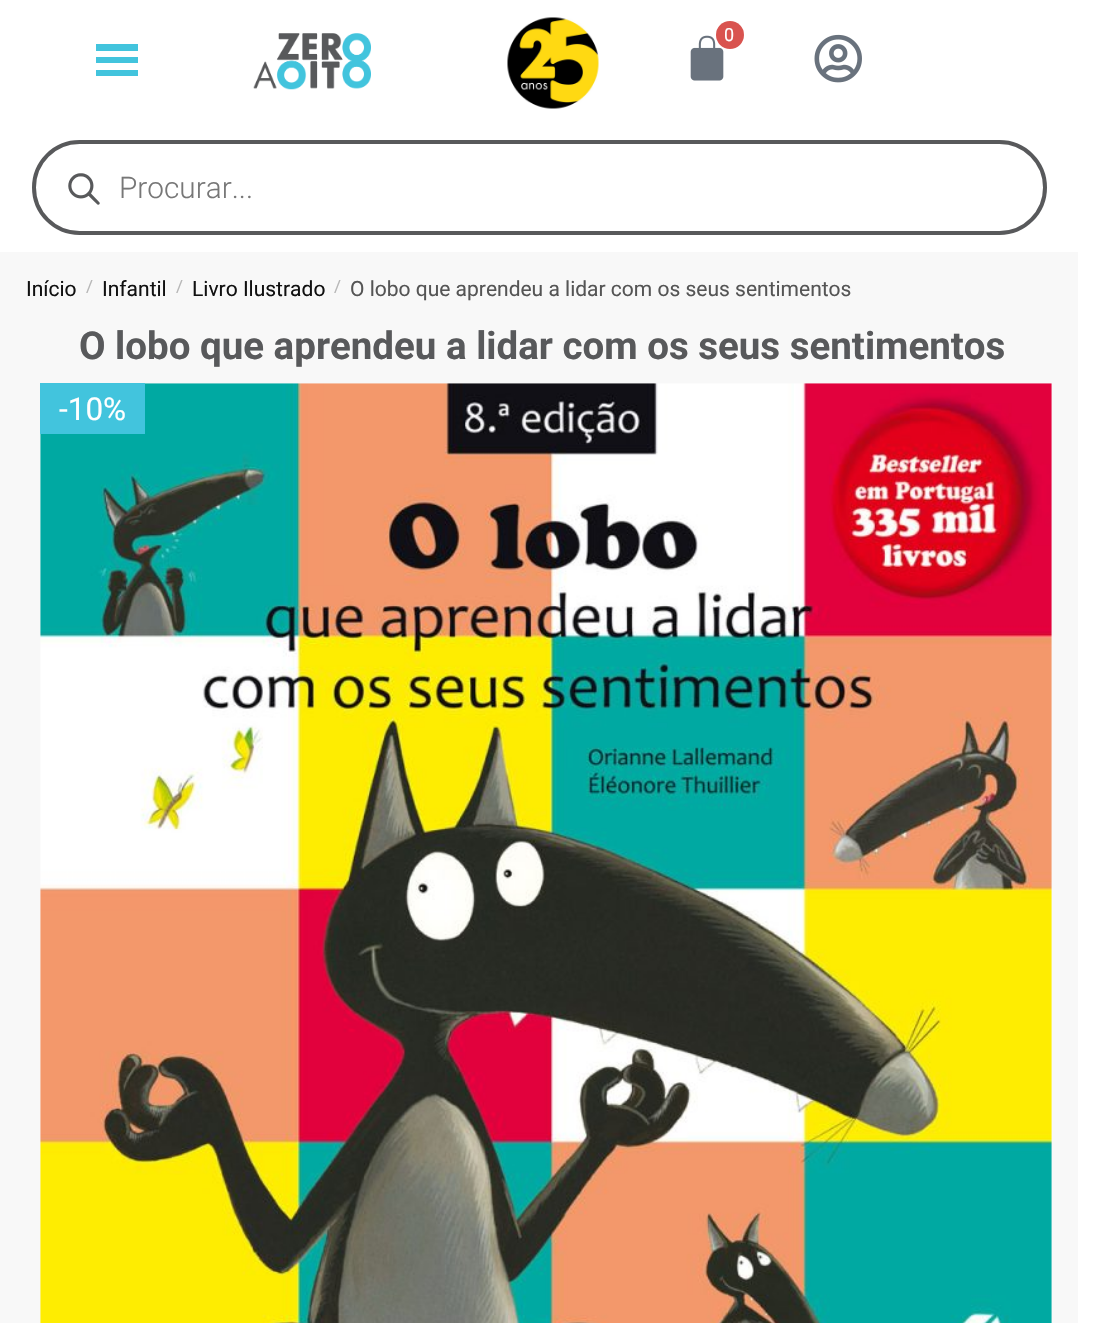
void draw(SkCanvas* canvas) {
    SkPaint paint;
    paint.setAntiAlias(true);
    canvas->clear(0xFFFFFFFF);
    paint.setColor(0xFF42C4DD);
    canvas->drawPath(SkPathBuilder().moveTo(138, 51).lineTo(138, 44).lineTo(96, 44).lineTo(96, 51).close().moveTo(138, 63).lineTo(138, 57).lineTo(96, 57).lineTo(96, 63).close().moveTo(138, 76).lineTo(138, 70).lineTo(96, 70).lineTo(96, 76).close().detach(), paint);
    canvas->drawImageRect(SkImages::DeferredFromEncodedData(SkData::MakeFromFileName("img1.png")), SkRect::MakeXYWH(253, 33, 118, 57), SkSamplingOptions());
    canvas->drawImageRect(SkImages::DeferredFromEncodedData(SkData::MakeFromFileName("img2.png")), SkRect::MakeXYWH(507, 17, 92, 92), SkSamplingOptions());
    canvas->drawImageRect(SkImages::DeferredFromEncodedData(SkData::MakeFromFileName("img3.png")), SkRect::MakeXYWH(690, 35, 34, 46), SkSamplingOptions());
    paint.setColor(0xFFD9534F);
    canvas->drawCircle(730, 35, 14, paint);
    SkFont font1(fontMgr->matchFamilyStyle("Roboto", SkFontStyle::Normal()), 18);
    font1.setSubpixel(true);
    paint.setColor(0xFFFFFFFF);
    canvas->drawString("0", 724, 41, font1, paint);
    canvas->drawImageRect(SkImages::DeferredFromEncodedData(SkData::MakeFromFileName("img4.png")), SkRect::MakeXYWH(814, 34, 48, 49), SkSamplingOptions());
    paint.setStyle(SkPaint::kStroke_Style);
    paint.setStrokeWidth(4);
    paint.setColor(0xFF58595B);
    canvas->drawRoundRect(SkRect::MakeXYWH(34, 142, 1011, 91), 45.5f, 45.5f, paint);
    canvas->drawImageRect(SkImages::DeferredFromEncodedData(SkData::MakeFromFileName("img5.png")), SkRect::MakeXYWH(68, 173, 32, 32), SkSamplingOptions());
    SkFont font2(fontMgr->matchFamilyStyle("Roboto", SkFontStyle(300, SkFontStyle::kNormal_Width, SkFontStyle::kUpright_Slant)), 29.75f);
    font2.setSubpixel(true);
    paint.setStyle(SkPaint::kFill_Style);
    paint.setColor(0xFF777777);
    canvas->drawString("Procurar...", 119, 198, font2, paint);
    paint.setColor(0xFFF8F8F8);
    canvas->drawRect(SkRect::MakeXYWH(0, 252, 1078, 1071), paint);
    SkFont font3(fontMgr->matchFamilyStyle("Roboto", SkFontStyle::Normal()), 21);
    font3.setSubpixel(true);
    paint.setColor(0xFF111111);
    canvas->drawString("Início", 26, 296, font3, paint);
    SkFont font4(fontMgr->matchFamilyStyle("Roboto", SkFontStyle::Normal()), 17);
    font4.setSubpixel(true);
    paint.setColor(0xFFB7B7B7);
    canvas->drawString("/", 86, 292, font4, paint);
    paint.setColor(0xFF111111);
    canvas->drawString("Infantil", 102, 296, font3, paint);
    paint.setColor(0xFFB7B7B7);
    canvas->drawString("/", 176, 292, font4, paint);
    paint.setColor(0xFF111111);
    canvas->drawString("Livro Ilustrado", 192, 296, font3, paint);
    paint.setColor(0xFFB7B7B7);
    canvas->drawString("/", 334, 292, font4, paint);
    paint.setColor(0xFF555555);
    canvas->drawString("O lobo que aprendeu a lidar com os seus sentimentos", 350, 296, font3, paint);
    SkFont font5(fontMgr->matchFamilyStyle("Roboto", SkFontStyle::Bold()), 38.5f);
    font5.setSubpixel(true);
    paint.setColor(0xFF58595B);
    canvas->drawString("O lobo que aprendeu a lidar com os seus sentimentos", 79, 359, font5, paint);
    canvas->drawImageRect(SkImages::DeferredFromEncodedData(SkData::MakeFromFileName("img6.png")), SkRect::MakeXYWH(40, 383, 1012, 940), SkSamplingOptions());
    paint.setColor(0xFF42C4DD);
    canvas->drawRect(SkRect::MakeXYWH(40, 383, 105, 51), paint);
    SkFont font6(fontMgr->matchFamilyStyle("Roboto", SkFontStyle::Normal()), 31.5f);
    font6.setSubpixel(true);
    paint.setColor(0xFFFFFFFF);
    canvas->drawString("-10%", 59, 420, font6, paint);
}
